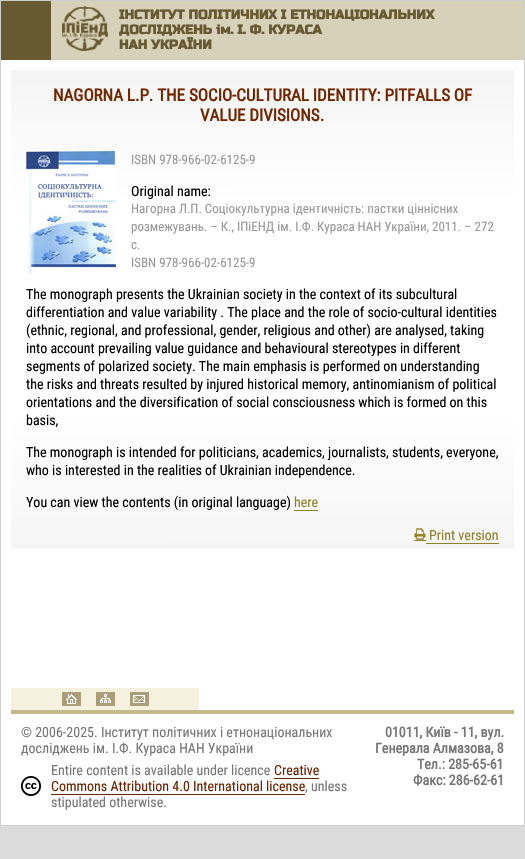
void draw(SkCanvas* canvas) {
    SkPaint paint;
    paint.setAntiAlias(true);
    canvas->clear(0xFFDBDBDB);
    paint.setColor(0xFFFFFFFF);
    canvas->drawRect(SkRect::MakeXYWH(1, 60, 523, 765), paint);
    paint.setStyle(SkPaint::kStroke_Style);
    paint.setStrokeWidth(1);
    paint.setColor(0xFFCDCDCD);
    canvas->drawRect(SkRect::MakeXYWH(0.5f, 0.5f, 524, 825), paint);
    paint.setStyle(SkPaint::kFill_Style);
    paint.setColor(0xFFD7D1B9);
    canvas->drawRect(SkRect::MakeXYWH(51, 1, 473, 59), paint);
    paint.setColor(0xFF675931);
    canvas->drawRect(SkRect::MakeXYWH(1, 1, 50, 59), paint);
    canvas->drawImageRect(SkImages::DeferredFromEncodedData(SkData::MakeFromFileName("img1.png")), SkRect::MakeXYWH(62, 6, 46, 45), SkSamplingOptions());
    SkFont font1(fontMgr->matchFamilyStyle("Russo One", SkFontStyle::Bold()), 13);
    font1.setSubpixel(true);
    canvas->drawString("ІНСТИТУТ ПОЛІТИЧНИХ І ЕТНОНАЦІОНАЛЬНИХ", 119, 19, font1, paint);
    canvas->drawString("ДОСЛІДЖЕНЬ ім. І. Ф. КУРАСА", 119, 34, font1, paint);
    canvas->drawString("НАН УКРАЇНИ", 119, 49, font1, paint);
    {
        const SkColor colors[] = {0xFFF5F5F5, 0xFFFFFFFF, 0xFFFFFFFF, 0xFFF5F5F5};
        const float stops[] = {0.02f, 0.28f, 0.72f, 1};
        const SkPoint ends[] = {{262, 70}, {263, 549}};
        paint.setShader(SkGradientShader::MakeLinear(ends, colors, stops, 4, SkTileMode::kClamp));
        paint.setAlpha(255);
    }
    canvas->drawRect(SkRect::MakeXYWH(11, 70, 503, 479), paint);
    SkFont font2(fontMgr->matchFamilyStyle("Roboto Condensed", SkFontStyle::Bold()), 17);
    font2.setSubpixel(true);
    paint.setShader(nullptr);
    paint.setColor(0xFF752600);
    canvas->drawString("NAGORNА L.P. THE SOCIO-CULTURAL IDENTITY: PITFALLS OF", 53, 101, font2, paint);
    canvas->drawString("VALUE DIVISIONS.", 200, 121, font2, paint);
    canvas->drawImageRect(SkImages::DeferredFromEncodedData(SkData::MakeFromFileName("img2.png")), SkRect::MakeXYWH(26, 151, 90, 123), SkSamplingOptions());
    SkFont font3(fontMgr->matchFamilyStyle("Roboto Condensed", SkFontStyle::Normal()), 13);
    font3.setSubpixel(true);
    paint.setColor(0xFF999999);
    canvas->drawString("ISBN 978-966-02-6125-9", 131, 164, font3, paint);
    SkFont font4(fontMgr->matchFamilyStyle("Roboto Condensed", SkFontStyle::Normal()), 14);
    font4.setSubpixel(true);
    paint.setColor(0xFF000000);
    canvas->drawString("Original name:", 131, 196, font4, paint);
    paint.setColor(0xFF999999);
    canvas->drawString("Нагорна Л.П. Соціокультурна ідентичність: пастки ціннісних", 131, 213, font3, paint);
    canvas->drawString("розмежувань. – К., ІПіЕНД ім. І.Ф. Кураса НАН України, 2011. – 272", 131, 231, font3, paint);
    canvas->drawString("с.", 131, 249, font3, paint);
    canvas->drawString("ISBN 978-966-02-6125-9", 131, 267, font3, paint);
    paint.setColor(0xFF000000);
    canvas->drawString("The monograph presents the Ukrainian society in the context of its subcultural", 26, 299, font4, paint);
    canvas->drawString("differentiation and value variability . The place and the role of socio-cultural identities", 26, 317, font4, paint);
    canvas->drawString("(ethnic, regional, and professional, gender, religious and other) are analysed, taking", 26, 335, font4, paint);
    canvas->drawString("into account prevailing value guidance and behavioural stereotypes in different", 26, 353, font4, paint);
    canvas->drawString("segments of polarized society. The main emphasis is performed on understanding", 26, 371, font4, paint);
    canvas->drawString("the risks and threats resulted by injured historical memory, antinomianism of political", 26, 389, font4, paint);
    canvas->drawString("orientations and the diversification of social consciousness which is formed on this", 26, 407, font4, paint);
    canvas->drawString("basis,", 26, 425, font4, paint);
    canvas->drawString("The monograph is intended for politicians, academics, journalists, students, everyone,", 26, 457, font4, paint);
    canvas->drawString("who is interested in the realities of Ukrainian independence.", 26, 475, font4, paint);
    canvas->drawString("You can view the contents (in original language)", 26, 507, font4, paint);
    paint.setColor(0xFF8F802C);
    canvas->drawString("here", 294, 507, font4, paint);
    canvas->drawRect(SkRect::MakeXYWH(294, 510, 24, 1), paint);
    canvas->drawImageRect(SkImages::DeferredFromEncodedData(SkData::MakeFromFileName("img3.png")), SkRect::MakeXYWH(414, 528, 12, 12), SkSamplingOptions());
    canvas->drawString("Print version", 429, 540, font4, paint);
    canvas->drawRect(SkRect::MakeXYWH(414, 540, 12, 1), paint);
    canvas->drawRect(SkRect::MakeXYWH(426, 543, 73, 1), paint);
    paint.setColor(0xFFC4B88D);
    canvas->drawRect(SkRect::MakeXYWH(11, 710, 503, 4), paint);
    paint.setColor(0xFFF6F1DE);
    canvas->drawRect(SkRect::MakeXYWH(11, 688, 188, 22), paint);
    canvas->drawImageRect(SkImages::DeferredFromEncodedData(SkData::MakeFromFileName("img4.png")), SkRect::MakeXYWH(62, 692, 19, 14), SkSamplingOptions());
    canvas->drawImageRect(SkImages::DeferredFromEncodedData(SkData::MakeFromFileName("img5.png")), SkRect::MakeXYWH(96, 692, 19, 14), SkSamplingOptions());
    canvas->drawImageRect(SkImages::DeferredFromEncodedData(SkData::MakeFromFileName("img6.png")), SkRect::MakeXYWH(130, 692, 19, 14), SkSamplingOptions());
    paint.setColor(0xFF777777);
    canvas->drawString("© 2006-2025. Інститут політичних і етнонаціональних", 21, 737, font4, paint);
    canvas->drawString("досліджень ім. І.Ф. Кураса НАН України", 21, 753, font4, paint);
    canvas->drawImageRect(SkImages::DeferredFromEncodedData(SkData::MakeFromFileName("img7.png")), SkRect::MakeXYWH(21, 776, 20, 20), SkSamplingOptions());
    canvas->drawString("Entire content is available under licence", 51, 775, font4, paint);
    paint.setColor(0xFF6C2400);
    canvas->drawString("Creative", 274, 775, font4, paint);
    canvas->drawString("Commons Attribution 4.0 International license", 51, 791, font4, paint);
    canvas->drawRect(SkRect::MakeXYWH(274, 778, 45, 1), paint);
    canvas->drawRect(SkRect::MakeXYWH(51, 794, 254, 1), paint);
    paint.setColor(0xFF777777);
    canvas->drawString(", unless", 305, 791, font4, paint);
    canvas->drawString("stipulated otherwise.", 51, 807, font4, paint);
    SkFont font5(fontMgr->matchFamilyStyle("Roboto Condensed", SkFontStyle::Bold()), 14);
    font5.setSubpixel(true);
    canvas->drawString("01011, Київ - 11, вул.", 385, 737, font5, paint);
    canvas->drawString("Генерала Алмазова, 8", 375, 753, font5, paint);
    canvas->drawString("Тел.: 285-65-61", 417, 769, font5, paint);
    canvas->drawString("Факс: 286-62-61", 413, 785, font5, paint);
}
